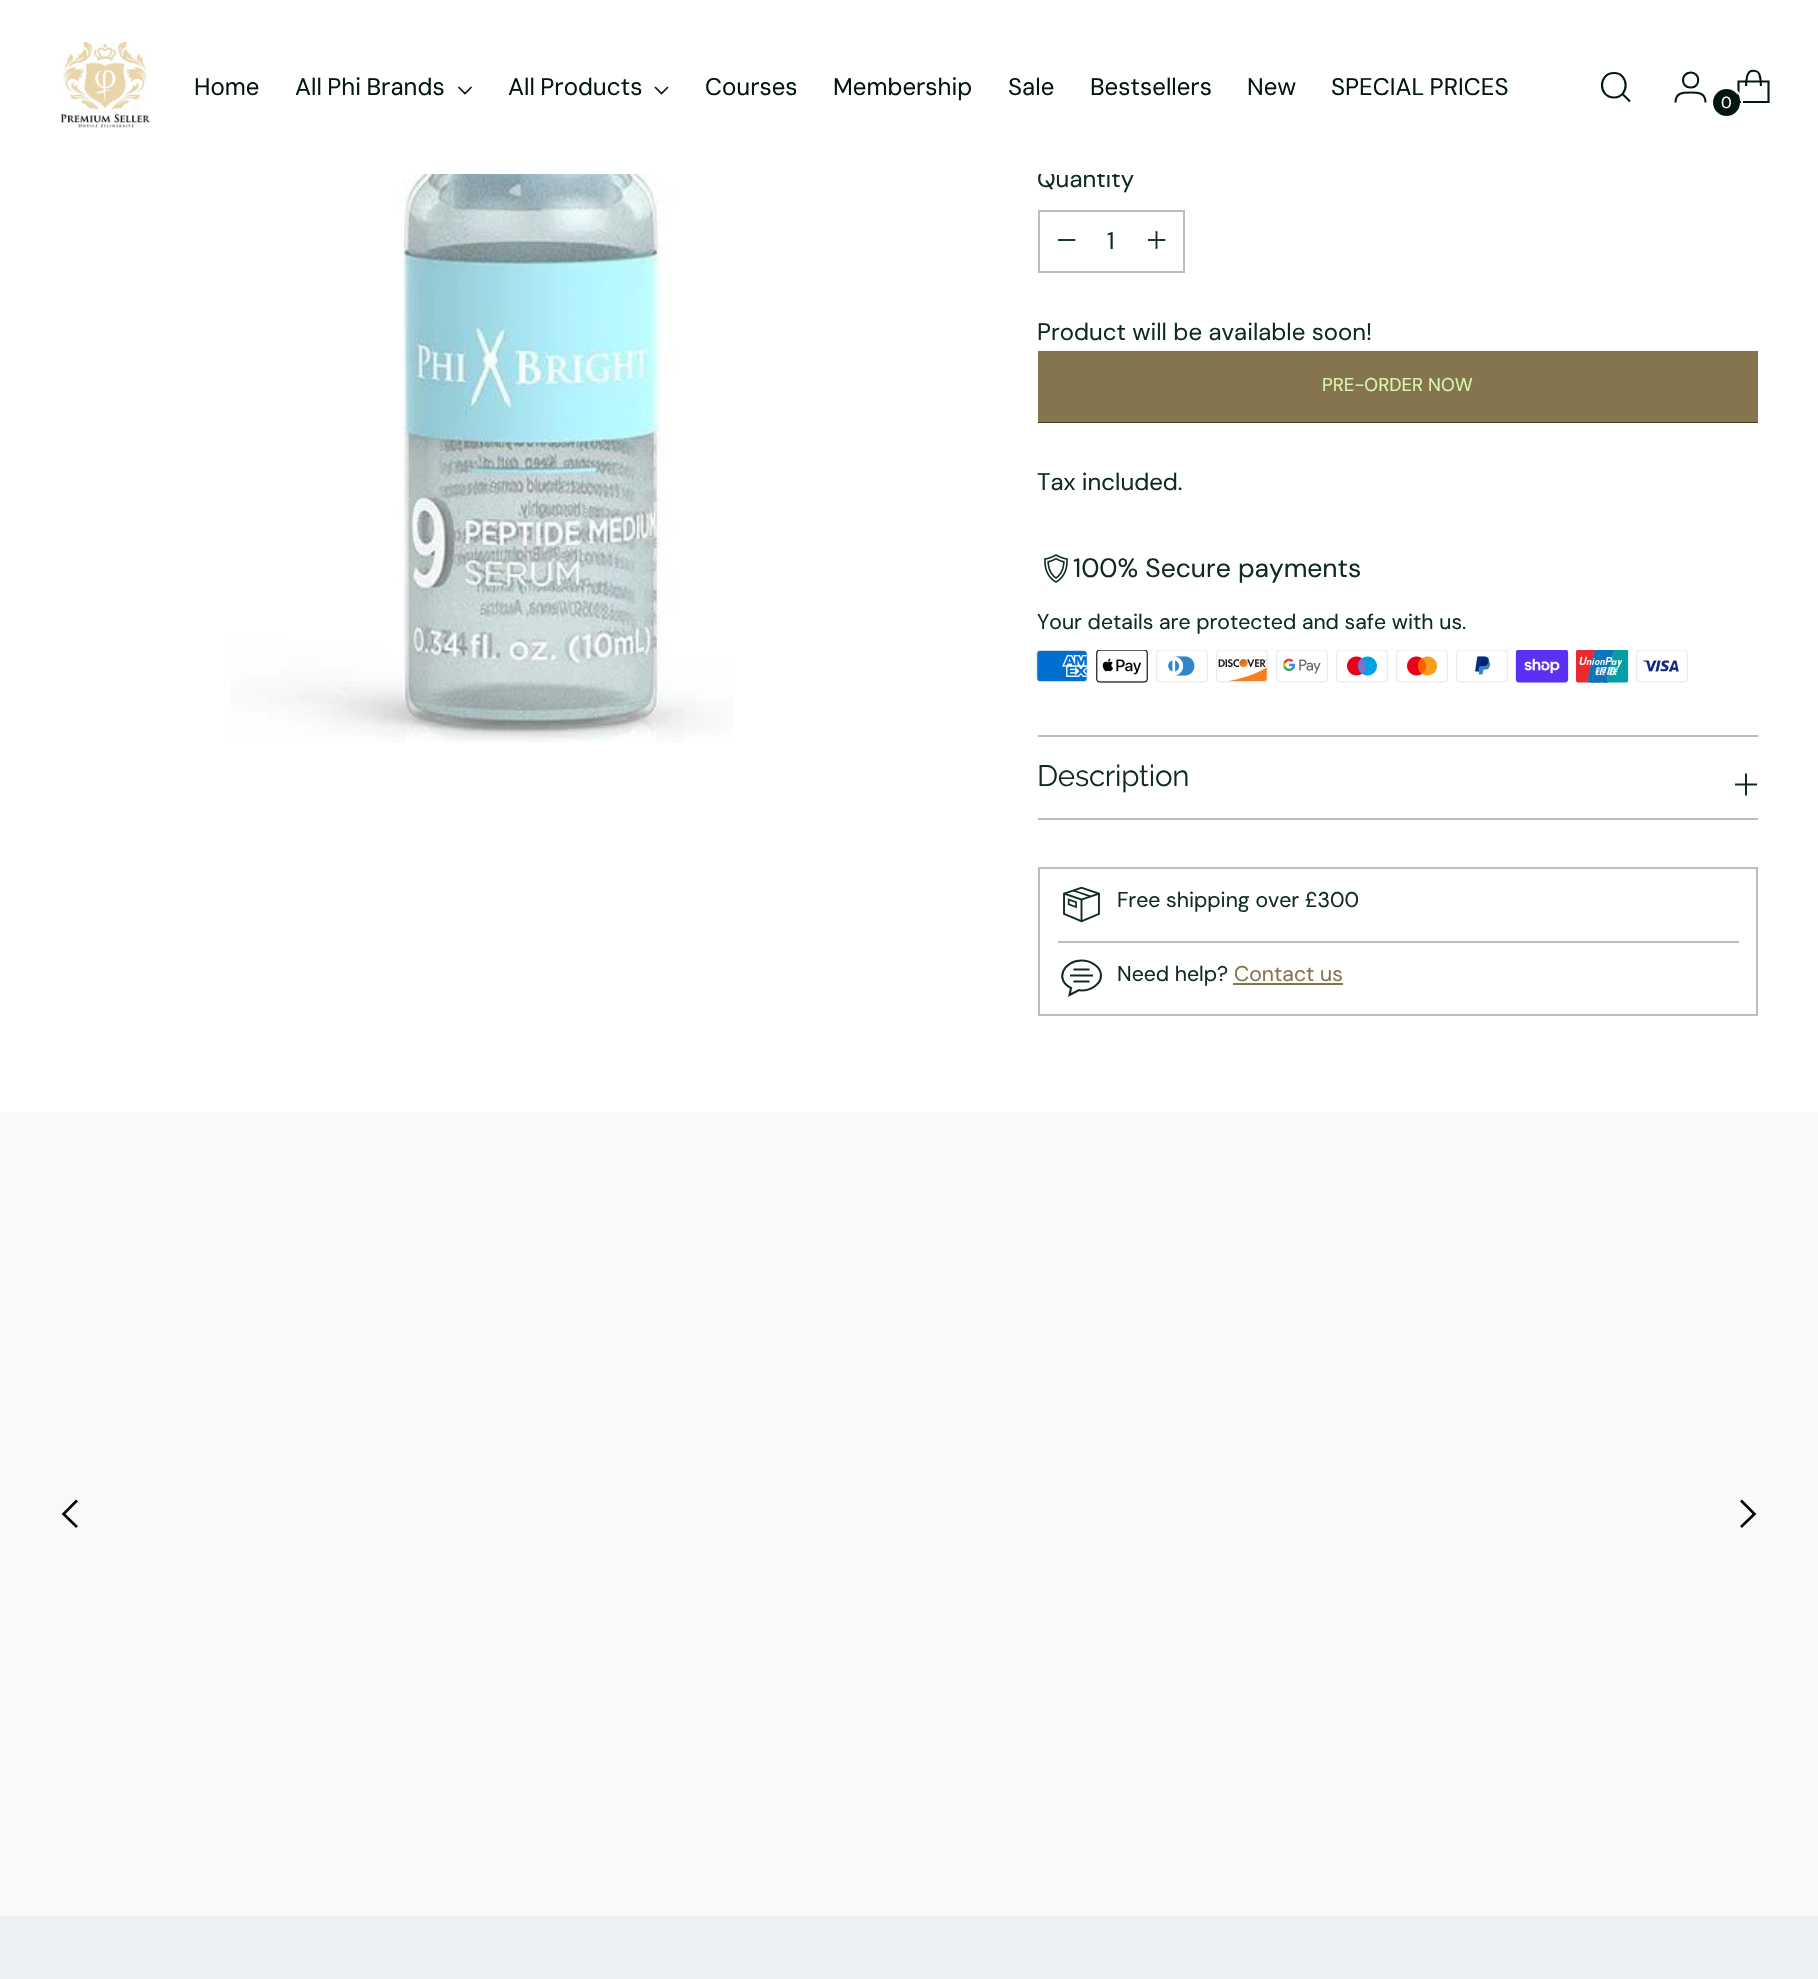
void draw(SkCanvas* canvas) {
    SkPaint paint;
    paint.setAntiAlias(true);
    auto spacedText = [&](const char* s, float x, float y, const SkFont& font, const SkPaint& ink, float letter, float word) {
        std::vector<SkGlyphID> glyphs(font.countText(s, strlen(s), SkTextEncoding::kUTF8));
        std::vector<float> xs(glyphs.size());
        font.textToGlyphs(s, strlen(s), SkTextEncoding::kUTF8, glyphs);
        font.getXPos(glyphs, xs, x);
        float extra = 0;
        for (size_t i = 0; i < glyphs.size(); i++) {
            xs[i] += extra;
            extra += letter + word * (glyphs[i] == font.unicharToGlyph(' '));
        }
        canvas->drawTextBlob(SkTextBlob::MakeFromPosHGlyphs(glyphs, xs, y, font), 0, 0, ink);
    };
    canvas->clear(0xFFFFFFFF);
    SkFont font1(fontMgr->matchFamilyStyle("DM Sans", SkFontStyle::Normal()), 24);
    font1.setSubpixel(true);
    paint.setColor(0xFF102B26);
    canvas->drawString("Quantity", 1037, 187, font1, paint);
    paint.setColor(0xFFFFFFFF);
    canvas->drawRect(SkRect::MakeXYWH(1039, 169, 78, 5), paint);
    canvas->drawImageRect(SkImages::DeferredFromEncodedData(SkData::MakeFromFileName("img1.png")), SkRect::MakeXYWH(60, 42, 90, 86), SkSamplingOptions());
    SkFont font2(fontMgr->matchFamilyStyle("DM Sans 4", SkFontStyle::Normal()), 24);
    font2.setSubpixel(true);
    paint.setColor(0xFF031612);
    canvas->drawString("Home", 194, 95, font2, paint);
    spacedText("All Phi Brands", 295, 95, font2, paint, 0, -1);
    paint.setStyle(SkPaint::kStroke_Style);
    paint.setStrokeWidth(1.7f);
    canvas->drawPath(SkPathBuilder().moveTo(458.5f, 87).lineTo(465, 93.5f).lineTo(471.5f, 87).detach(), paint);
    paint.setStyle(SkPaint::kFill_Style);
    spacedText("All Products", 508, 95, font2, paint, 0, -1);
    paint.setStyle(SkPaint::kStroke_Style);
    canvas->drawPath(SkPathBuilder().moveTo(655, 87).lineTo(661.5f, 93.5f).lineTo(668, 87).detach(), paint);
    paint.setStyle(SkPaint::kFill_Style);
    canvas->drawString("Courses", 705, 95, font2, paint);
    canvas->drawString("Membership", 833, 95, font2, paint);
    canvas->drawString("Sale", 1008, 95, font2, paint);
    canvas->drawString("Bestsellers", 1090, 95, font2, paint);
    canvas->drawString("New", 1247, 95, font2, paint);
    spacedText("SPECIAL PRICES", 1331, 95, font2, paint, 0, -1);
    paint.setStyle(SkPaint::kStroke_Style);
    paint.setStrokeWidth(2.1f);
    paint.setStrokeCap(SkPaint::kRound_Cap);
    canvas->drawPath(SkPathBuilder().moveTo(1614, 97.5f).cubicTo(1629.5f, 97.5f, 1629.5f, 73, 1614, 73).cubicTo(1598, 73, 1598, 97.5f, 1614, 97.5f).close().detach(), paint);
    paint.setStrokeCap(SkPaint::kButt_Cap);
    canvas->drawPath(SkPathBuilder().moveTo(1622.5f, 94).lineTo(1630, 101.5f).detach(), paint);
    canvas->drawPath(SkPathBuilder().moveTo(1690.5f, 87.5f).cubicTo(1701, 88, 1700.5f, 72, 1690.5f, 72.5f).cubicTo(1680.5f, 73, 1680.5f, 87.5f, 1690.5f, 87.5f).close().moveTo(1675.5f, 102.5f).cubicTo(1675.5f, 92.5f, 1683, 92.5f, 1690.5f, 92.5f).cubicTo(1698, 92.5f, 1705.5f, 92.5f, 1705.5f, 102.5f).detach(), paint);
    paint.setStrokeJoin(SkPaint::kBevel_Join);
    canvas->drawPath(SkPathBuilder().moveTo(1761, 86).cubicTo(1760.5f, 82.5f, 1761, 78.5f, 1759.5f, 75).cubicTo(1759, 73, 1757, 71, 1755, 71).cubicTo(1746, 69, 1746.5f, 80.5f, 1746, 86).detach(), paint);
    paint.setStrokeJoin(SkPaint::kMiter_Join);
    canvas->drawPath(SkPathBuilder().moveTo(1768.5f, 102).lineTo(1768.5f, 81.5f).lineTo(1738.5f, 81.5f).lineTo(1738.5f, 102).close().detach(), paint);
    paint.setStrokeWidth(2);
    paint.setColor(0xFFFFFFFF);
    canvas->drawRoundRect(SkRect::MakeXYWH(1713, 88, 29, 30), 14.5f, 14.5f, paint);
    paint.setStyle(SkPaint::kFill_Style);
    paint.setColor(0xFF031612);
    canvas->drawCircle(1726.5f, 102.5f, 13.5f, paint);
    SkFont font3(fontMgr->matchFamilyStyle("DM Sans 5", SkFontStyle::Normal()), 16);
    font3.setSubpixel(true);
    paint.setColor(0xFFFFFFFF);
    canvas->drawString("0", 1721, 108, font3, paint);
    canvas->drawImageRect(SkImages::DeferredFromEncodedData(SkData::MakeFromFileName("img2.png")), SkRect::MakeXYWH(231, 174, 503, 569), SkSamplingOptions());
    paint.setStyle(SkPaint::kStroke_Style);
    paint.setColor(0xFFBDBFBF);
    canvas->drawRect(SkRect::MakeXYWH(1039, 211, 145, 61), paint);
    canvas->drawImageRect(SkImages::DeferredFromEncodedData(SkData::MakeFromFileName("img3.png")), SkRect::MakeXYWH(1058, 239, 18, 2), SkSamplingOptions());
    paint.setStyle(SkPaint::kFill_Style);
    paint.setColor(0xFF102B26);
    canvas->drawString("1", 1107, 249, font1, paint);
    canvas->drawImageRect(SkImages::DeferredFromEncodedData(SkData::MakeFromFileName("img4.png")), SkRect::MakeXYWH(1148, 231, 18, 18), SkSamplingOptions());
    canvas->drawString("Product will be available soon!", 1037, 340, font1, paint);
    canvas->save();
    canvas->clipRect(SkRect::MakeXYWH(1038, 351, 720, 72));
    paint.setColor(0xFF85754E);
    canvas->drawPath(SkPathBuilder().moveTo(908, 350).lineTo(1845, 350).lineTo(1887, 422).lineTo(950, 422).close().detach(), paint);
    canvas->restore();
    SkFont font4(fontMgr->matchFamilyStyle("DM Sans 4", SkFontStyle::Normal()), 18.5f);
    font4.setSubpixel(true);
    paint.setColor(0xFFDAF4B1);
    canvas->drawString("PRE-ORDER NOW", 1322, 391, font4, paint);
    paint.setColor(0xFF453C28);
    canvas->drawRect(SkRect::MakeXYWH(1038, 422, 720, 1), paint);
    paint.setColor(0xFF102B26);
    canvas->drawString("Tax included.", 1037, 490, font1, paint);
    canvas->drawImageRect(SkImages::DeferredFromEncodedData(SkData::MakeFromFileName("img5.png")), SkRect::MakeXYWH(1044, 554, 24, 29), SkSamplingOptions());
    SkFont font5(fontMgr->matchFamilyStyle("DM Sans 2", SkFontStyle::Normal()), 26.5f);
    font5.setSubpixel(true);
    canvas->drawString("100% Secure payments", 1073, 577, font5, paint);
    SkFont font6(fontMgr->matchFamilyStyle("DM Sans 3", SkFontStyle::Normal()), 21.25f);
    font6.setSubpixel(true);
    canvas->drawString("Your details are protected and safe with us.", 1037, 629, font6, paint);
    canvas->drawImageRect(SkImages::DeferredFromEncodedData(SkData::MakeFromFileName("img6.png")), SkRect::MakeXYWH(1036, 650, 52, 33), SkSamplingOptions());
    canvas->drawImageRect(SkImages::DeferredFromEncodedData(SkData::MakeFromFileName("img7.png")), SkRect::MakeXYWH(1096, 650, 52, 33), SkSamplingOptions());
    canvas->drawImageRect(SkImages::DeferredFromEncodedData(SkData::MakeFromFileName("img8.png")), SkRect::MakeXYWH(1156, 650, 52, 33), SkSamplingOptions());
    canvas->drawImageRect(SkImages::DeferredFromEncodedData(SkData::MakeFromFileName("img9.png")), SkRect::MakeXYWH(1216, 650, 52, 33), SkSamplingOptions());
    canvas->drawImageRect(SkImages::DeferredFromEncodedData(SkData::MakeFromFileName("img10.png")), SkRect::MakeXYWH(1276, 650, 52, 33), SkSamplingOptions());
    canvas->drawImageRect(SkImages::DeferredFromEncodedData(SkData::MakeFromFileName("img11.png")), SkRect::MakeXYWH(1336, 650, 52, 33), SkSamplingOptions());
    canvas->drawImageRect(SkImages::DeferredFromEncodedData(SkData::MakeFromFileName("img12.png")), SkRect::MakeXYWH(1396, 650, 52, 33), SkSamplingOptions());
    canvas->drawImageRect(SkImages::DeferredFromEncodedData(SkData::MakeFromFileName("img13.png")), SkRect::MakeXYWH(1456, 650, 52, 33), SkSamplingOptions());
    canvas->drawImageRect(SkImages::DeferredFromEncodedData(SkData::MakeFromFileName("img14.png")), SkRect::MakeXYWH(1515, 650, 54, 33), SkSamplingOptions());
    canvas->drawImageRect(SkImages::DeferredFromEncodedData(SkData::MakeFromFileName("img15.png")), SkRect::MakeXYWH(1576, 650, 53, 33), SkSamplingOptions());
    canvas->drawImageRect(SkImages::DeferredFromEncodedData(SkData::MakeFromFileName("img16.png")), SkRect::MakeXYWH(1636, 650, 52, 33), SkSamplingOptions());
    paint.setColor(0xFFBDBFBF);
    canvas->drawRect(SkRect::MakeXYWH(1038, 735, 720, 2), paint);
    canvas->drawRect(SkRect::MakeXYWH(1038, 818, 720, 2), paint);
    SkFont font7(fontMgr->matchFamilyStyle("Raleway", SkFontStyle::Normal()), 29.5f);
    font7.setSubpixel(true);
    paint.setColor(0xFF102B26);
    spacedText("Description", 1037, 786, font7, paint, -0.25f, 0);
    paint.setStyle(SkPaint::kStroke_Style);
    canvas->drawPath(SkPathBuilder().moveTo(1735, 784.5f).lineTo(1746, 784.5f).moveTo(1757, 784.5f).lineTo(1746, 784.5f).moveTo(1746, 784.5f).lineTo(1746, 773.5f).moveTo(1746, 784.5f).lineTo(1746, 795.5f).detach(), paint);
    paint.setColor(0xFFBDBFBF);
    canvas->drawRect(SkRect::MakeXYWH(1039, 868, 718, 147), paint);
    canvas->drawImageRect(SkImages::DeferredFromEncodedData(SkData::MakeFromFileName("img17.png")), SkRect::MakeXYWH(1063, 886, 37, 37), SkSamplingOptions());
    paint.setStyle(SkPaint::kFill_Style);
    paint.setColor(0xFF102B26);
    canvas->drawString("Free shipping over £300", 1117, 907, font6, paint);
    paint.setColor(0xFFBDBFBF);
    canvas->drawRect(SkRect::MakeXYWH(1058, 941, 681, 2), paint);
    paint.setStyle(SkPaint::kStroke_Style);
    paint.setStrokeWidth(2.1f);
    paint.setColor(0xFF102B26);
    canvas->drawPath(SkPathBuilder().moveTo(1070, 975.5f).lineTo(1093, 975.5f).moveTo(1073.5f, 969.5f).lineTo(1089.5f, 969.5f).moveTo(1073.5f, 981.5f).lineTo(1089.5f, 981.5f).detach(), paint);
    paint.setStrokeCap(SkPaint::kRound_Cap);
    canvas->drawPath(SkPathBuilder().moveTo(1081.5f, 960.5f).cubicTo(1064, 960.5f, 1054, 979.5f, 1071, 988).lineTo(1069.5f, 995).lineTo(1079, 990).lineTo(1081.5f, 990.5f).cubicTo(1092, 990.5f, 1101, 983.5f, 1101, 975.5f).cubicTo(1101, 967.5f, 1092, 960.5f, 1081.5f, 960.5f).close().detach(), paint);
    paint.setStyle(SkPaint::kFill_Style);
    canvas->drawString("Need help?", 1117, 981, font6, paint);
    paint.setColor(0xFF85754E);
    canvas->drawString("Contact us", 1234, 981, font6, paint);
    canvas->drawRect(SkRect::MakeXYWH(1233, 983, 110, 2), paint);
    paint.setColor(0xFFF9F9F9);
    canvas->drawRect(SkRect::MakeXYWH(0, 1112, 1818, 804), paint);
    paint.setStyle(SkPaint::kStroke_Style);
    paint.setStrokeWidth(2.6f);
    paint.setStrokeCap(SkPaint::kButt_Cap);
    paint.setColor(0xFF000000);
    canvas->drawPath(SkPathBuilder().moveTo(77, 1500.5f).lineTo(63.5f, 1514).lineTo(77, 1527).detach(), paint);
    canvas->drawPath(SkPathBuilder().moveTo(1741, 1527).lineTo(1754.5f, 1514).lineTo(1741, 1500.5f).detach(), paint);
    paint.setStyle(SkPaint::kFill_Style);
    paint.setColor(0xFFEBF0F2);
    canvas->drawRect(SkRect::MakeXYWH(0, 1916, 1818, 63), paint);
}
